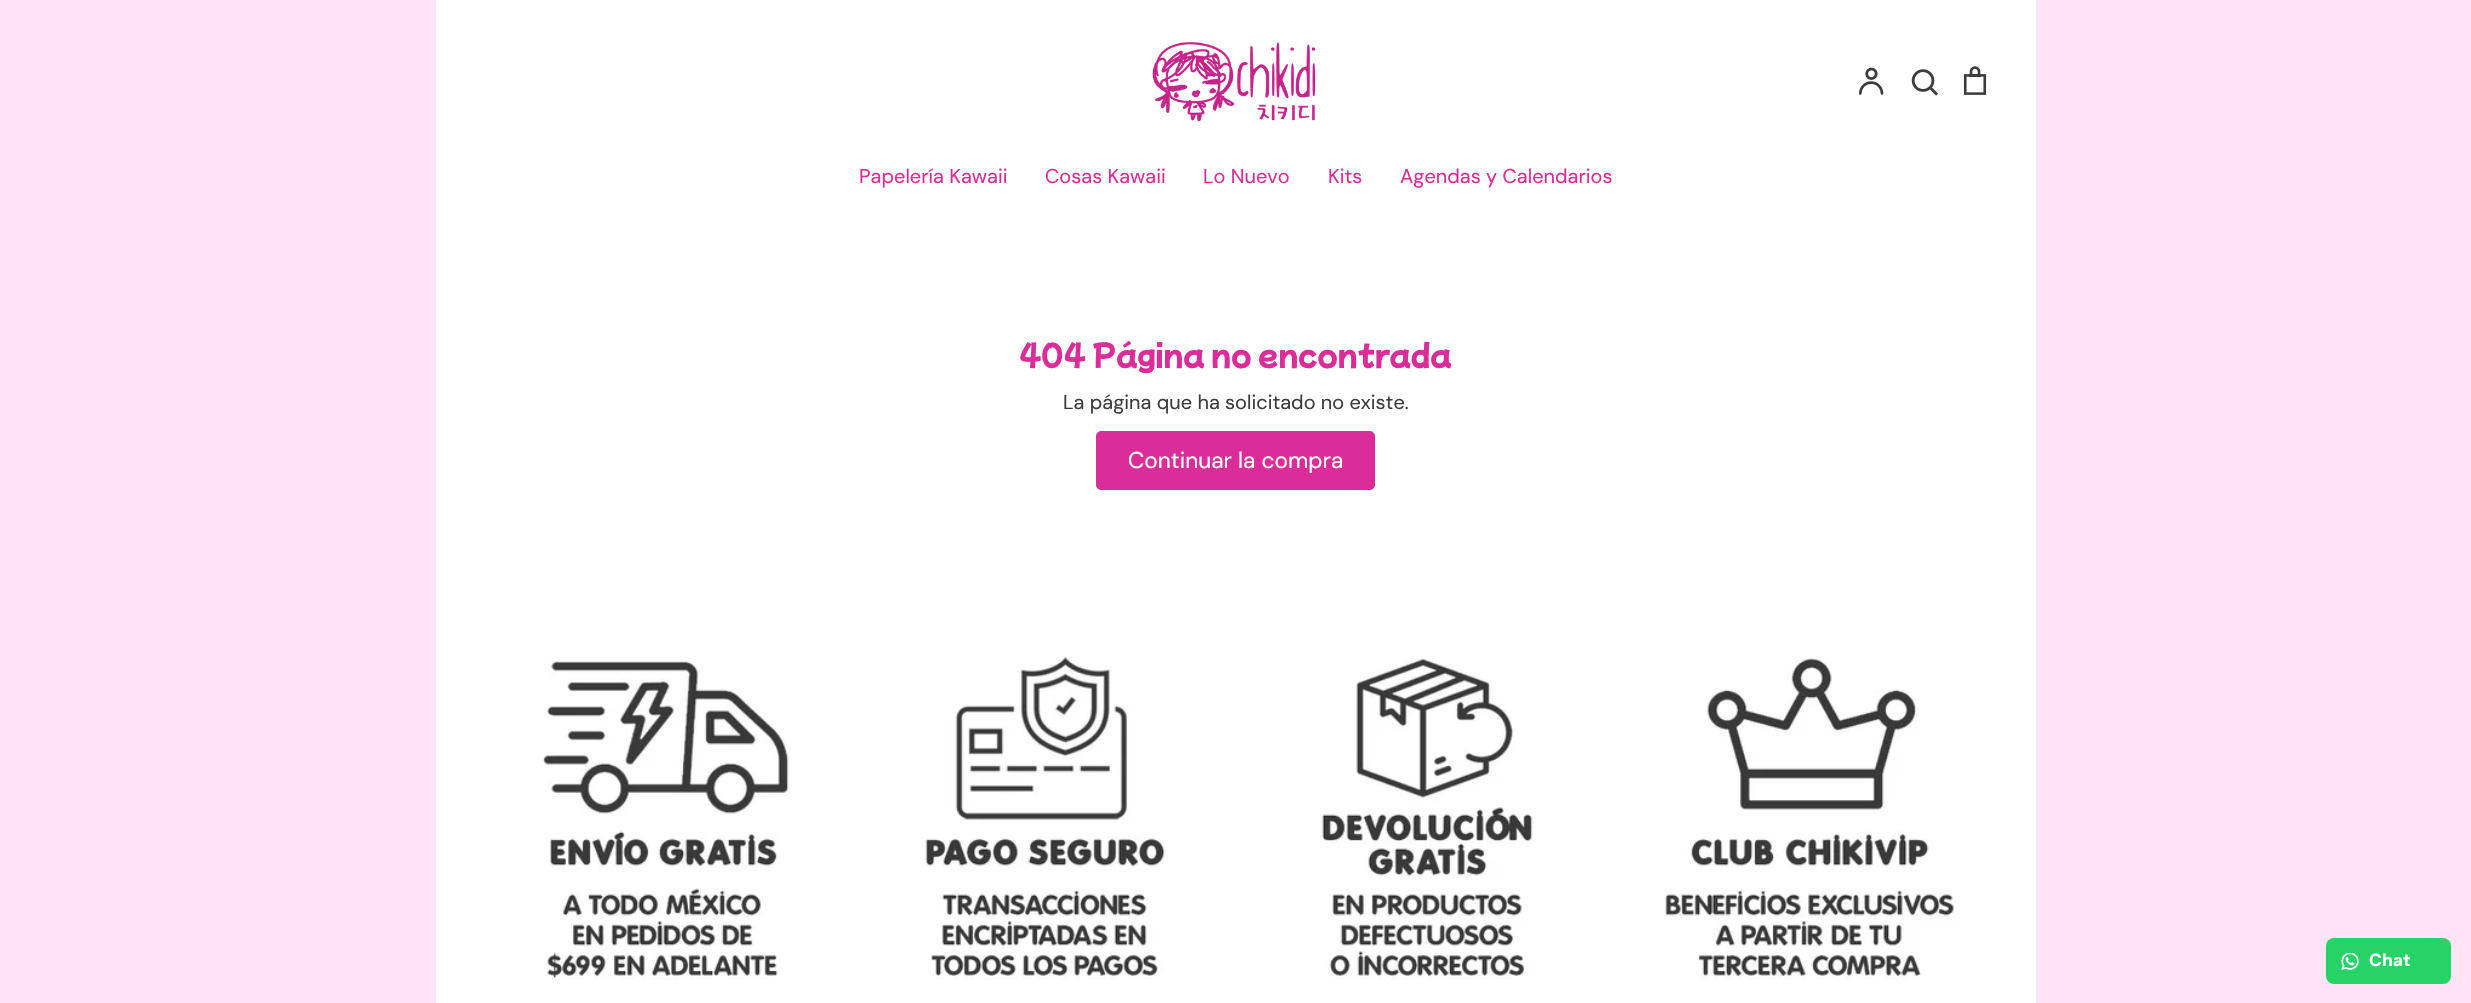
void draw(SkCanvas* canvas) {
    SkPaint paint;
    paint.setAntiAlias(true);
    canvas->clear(0xFFFFE4F5);
    paint.setColor(0xFFFFFFFF);
    canvas->drawRect(SkRect::MakeXYWH(436, 0, 1600, 1003), paint);
    canvas->drawImageRect(SkImages::DeferredFromEncodedData(SkData::MakeFromFileName("img1.png")), SkRect::MakeXYWH(1152, 42, 164, 80), SkSamplingOptions());
    canvas->drawImageRect(SkImages::DeferredFromEncodedData(SkData::MakeFromFileName("img2.png")), SkRect::MakeXYWH(1859, 67, 25, 28), SkSamplingOptions());
    canvas->drawImageRect(SkImages::DeferredFromEncodedData(SkData::MakeFromFileName("img3.png")), SkRect::MakeXYWH(1911, 69, 28, 27), SkSamplingOptions());
    canvas->drawImageRect(SkImages::DeferredFromEncodedData(SkData::MakeFromFileName("img4.png")), SkRect::MakeXYWH(1963, 66, 24, 29), SkSamplingOptions());
    SkFont font1(fontMgr->matchFamilyStyle("DM Sans", SkFontStyle::Normal()), 20);
    font1.setSubpixel(true);
    paint.setColor(0xFFDA2D9A);
    canvas->drawString("Papelería Kawaii", 859, 183, font1, paint);
    canvas->drawString("Cosas Kawaii", 1045, 183, font1, paint);
    canvas->drawString("Lo Nuevo", 1203, 183, font1, paint);
    canvas->drawString("Kits", 1328, 183, font1, paint);
    canvas->drawString("Agendas y Calendarios", 1400, 183, font1, paint);
    SkFont font2(fontMgr->matchFamilyStyle("Mochiy Pop P One", SkFontStyle::Normal()), 29.3f);
    font2.setSubpixel(true);
    canvas->drawString("404 Página no encontrada", 1019, 366, font2, paint);
    paint.setColor(0xFF3C3C3C);
    canvas->drawString("La página que ha solicitado no existe.", 1063, 409, font1, paint);
    paint.setColor(0xFFDA2D9A);
    canvas->drawRoundRect(SkRect::MakeXYWH(1096.5f, 431.5f, 278, 58), 4.5f, 4.5f, paint);
    paint.setStyle(SkPaint::kStroke_Style);
    paint.setStrokeWidth(1);
    canvas->drawRoundRect(SkRect::MakeXYWH(1096.5f, 431.5f, 278, 58), 4.5f, 4.5f, paint);
    SkFont font3(fontMgr->matchFamilyStyle("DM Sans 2", SkFontStyle::Normal()), 22.75f);
    font3.setSubpixel(true);
    paint.setStyle(SkPaint::kFill_Style);
    paint.setColor(0xFFFFFFFF);
    canvas->drawString("Continuar la compra", 1128, 468, font3, paint);
    canvas->drawImageRect(SkImages::DeferredFromEncodedData(SkData::MakeFromFileName("img5.png")), SkRect::MakeXYWH(542, 661, 248, 319), SkSamplingOptions());
    canvas->drawImageRect(SkImages::DeferredFromEncodedData(SkData::MakeFromFileName("img6.png")), SkRect::MakeXYWH(925, 656, 243, 324), SkSamplingOptions());
    canvas->drawImageRect(SkImages::DeferredFromEncodedData(SkData::MakeFromFileName("img7.png")), SkRect::MakeXYWH(1320, 656, 216, 324), SkSamplingOptions());
    canvas->drawImageRect(SkImages::DeferredFromEncodedData(SkData::MakeFromFileName("img8.png")), SkRect::MakeXYWH(1665, 655, 291, 325), SkSamplingOptions());
    paint.setColor(0xFF25D366);
    canvas->drawRoundRect(SkRect::MakeXYWH(2326, 938, 125, 46), 8, 8, paint);
    canvas->drawImageRect(SkImages::DeferredFromEncodedData(SkData::MakeFromFileName("img9.png")), SkRect::MakeXYWH(2341, 953, 18, 17), SkSamplingOptions());
    SkFont font4(fontMgr->matchFamilyStyle("DM Sans", SkFontStyle::Bold()), 17.5f);
    font4.setSubpixel(true);
    paint.setColor(0xFFFFFFFF);
    canvas->drawString("Chat", 2369, 966, font4, paint);
}
